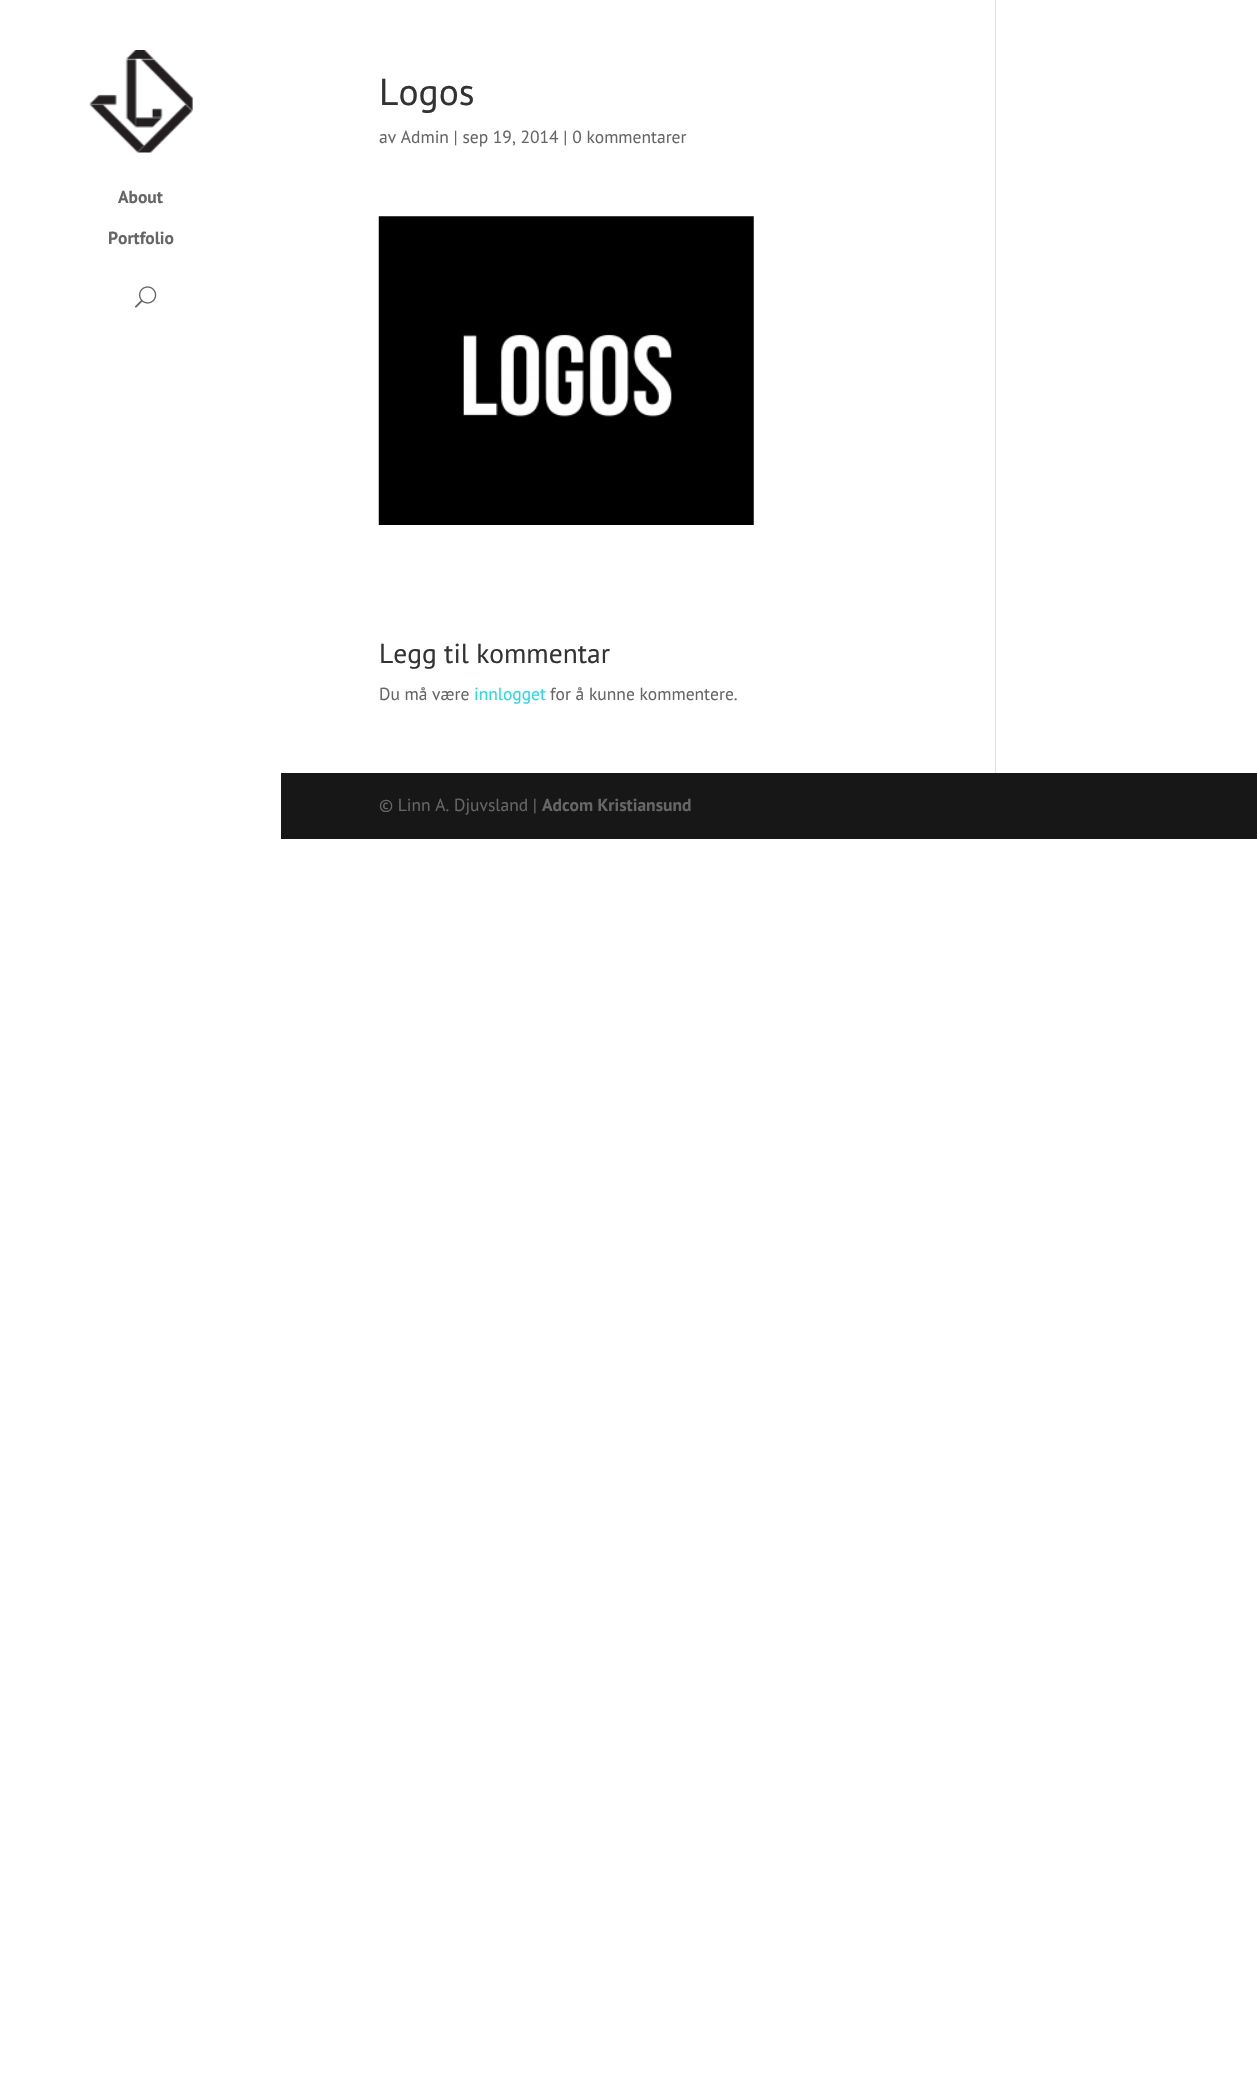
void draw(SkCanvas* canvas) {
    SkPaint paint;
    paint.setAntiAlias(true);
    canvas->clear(0xFFFFFFFF);
    canvas->drawImageRect(SkImages::DeferredFromEncodedData(SkData::MakeFromFileName("img1.png")), SkRect::MakeXYWH(89, 50, 104, 103), SkSamplingOptions());
    SkFont font1(fontMgr->matchFamilyStyle("PT Sans", SkFontStyle::Bold()), 17.5f);
    font1.setSubpixel(true);
    paint.setColor(0xFF666666);
    canvas->drawString("About", 118, 203, font1, paint);
    canvas->drawString("Portfolio", 108, 244, font1, paint);
    canvas->drawImageRect(SkImages::DeferredFromEncodedData(SkData::MakeFromFileName("img2.png")), SkRect::MakeXYWH(135, 286, 22, 22), SkSamplingOptions());
    SkFont font2(fontMgr->matchFamilyStyle("PT Sans", SkFontStyle::Normal()), 37.5f);
    font2.setSubpixel(true);
    paint.setColor(0xFF333333);
    canvas->drawString("Logos", 379, 105, font2, paint);
    SkFont font3(fontMgr->matchFamilyStyle("PT Sans", SkFontStyle::Normal()), 17.5f);
    font3.setSubpixel(true);
    paint.setColor(0xFF666666);
    canvas->drawString("av Admin | sep 19, 2014 | 0 kommentarer", 379, 143, font3, paint);
    canvas->drawImageRect(SkImages::DeferredFromEncodedData(SkData::MakeFromFileName("img3.png")), SkRect::MakeXYWH(378, 216, 376, 309), SkSamplingOptions());
    SkFont font4(fontMgr->matchFamilyStyle("PT Sans", SkFontStyle::Normal()), 27.5f);
    font4.setSubpixel(true);
    paint.setColor(0xFF333333);
    canvas->drawString("Legg til kommentar", 379, 663, font4, paint);
    paint.setColor(0xFF666666);
    canvas->drawString("Du må være", 379, 700, font3, paint);
    paint.setColor(0xFF2CD5E8);
    canvas->drawString("innlogget", 474, 700, font3, paint);
    paint.setColor(0xFF666666);
    canvas->drawString("for å kunne kommentere.", 550, 700, font3, paint);
    paint.setColor(0xFFE2E2E2);
    canvas->drawRect(SkRect::MakeXYWH(995, 0, 1, 773), paint);
    paint.setColor(0xFF171717);
    canvas->drawRect(SkRect::MakeXYWH(281, 773, 976, 66), paint);
    paint.setColor(0xFF666666);
    canvas->drawString("© Linn A. Djuvsland |", 379, 811, font3, paint);
    canvas->drawString("Adcom Kristiansund", 542, 811, font1, paint);
}
